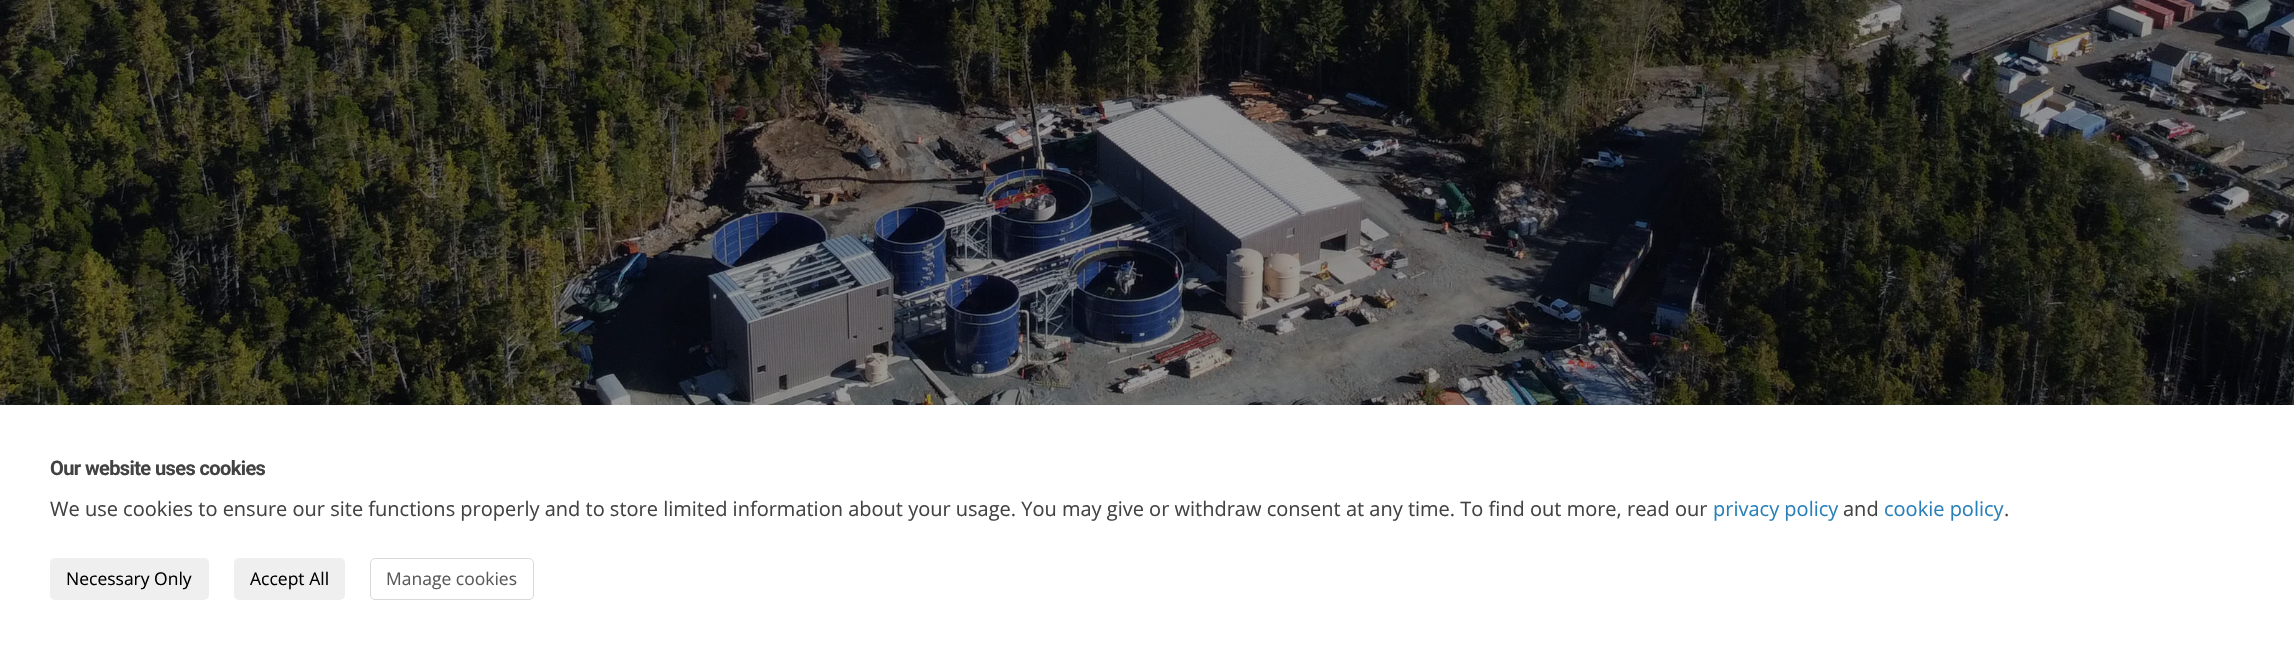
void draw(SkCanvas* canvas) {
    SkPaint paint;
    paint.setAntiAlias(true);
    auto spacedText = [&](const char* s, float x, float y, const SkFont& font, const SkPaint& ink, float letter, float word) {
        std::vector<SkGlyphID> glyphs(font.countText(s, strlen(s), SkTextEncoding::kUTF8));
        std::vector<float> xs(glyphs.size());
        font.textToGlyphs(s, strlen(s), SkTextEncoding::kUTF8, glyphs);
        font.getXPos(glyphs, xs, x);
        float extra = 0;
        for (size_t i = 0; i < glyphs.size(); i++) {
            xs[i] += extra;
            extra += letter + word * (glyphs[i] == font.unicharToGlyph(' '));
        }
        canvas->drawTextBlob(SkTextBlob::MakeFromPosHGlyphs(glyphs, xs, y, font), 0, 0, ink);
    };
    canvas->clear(0xFFFFFFFF);
    canvas->drawImageRect(SkImages::DeferredFromEncodedData(SkData::MakeFromFileName("img1.png")), SkRect::MakeXYWH(0, 0, 2294, 405), SkSamplingOptions());
    SkFont font1(fontMgr->matchFamilyStyle("Roboto", SkFontStyle::Bold()), 20);
    font1.setSubpixel(true);
    paint.setColor(0xFF434343);
    spacedText("Our website uses cookies", 50, 475, font1, paint, -0.6f, 0);
    SkFont font2(fontMgr->matchFamilyStyle("Open Sans", SkFontStyle::Normal()), 20);
    font2.setSubpixel(true);
    canvas->drawString("We use cookies to ensure our site functions properly and to store limited information about your usage. You may give or withdraw consent at any time. To find out more, read our", 50, 516, font2, paint);
    paint.setColor(0xFF2980B9);
    canvas->drawString("privacy policy", 1713, 516, font2, paint);
    paint.setColor(0xFF434343);
    canvas->drawString("and", 1843, 516, font2, paint);
    paint.setColor(0xFF2980B9);
    canvas->drawString("cookie policy", 1884, 516, font2, paint);
    paint.setColor(0xFF434343);
    canvas->drawString(".", 2004, 516, font2, paint);
    paint.setColor(0xFFEFEFEF);
    canvas->drawRoundRect(SkRect::MakeXYWH(50, 558, 159, 42), 5, 5, paint);
    SkFont font3(fontMgr->matchFamilyStyle("Open Sans", SkFontStyle::Normal()), 17.5f);
    font3.setSubpixel(true);
    paint.setColor(0xFF000000);
    canvas->drawString("Necessary Only", 66, 585, font3, paint);
    paint.setColor(0xFFEFEFEF);
    canvas->drawRoundRect(SkRect::MakeXYWH(234, 558, 111, 42), 5, 5, paint);
    paint.setColor(0xFF000000);
    canvas->drawString("Accept All", 250, 585, font3, paint);
    paint.setStyle(SkPaint::kStroke_Style);
    paint.setStrokeWidth(1);
    paint.setColor(0xFFD9D9D9);
    canvas->drawRoundRect(SkRect::MakeXYWH(370.5f, 558.5f, 163, 41), 4.5f, 4.5f, paint);
    paint.setStyle(SkPaint::kFill_Style);
    paint.setColor(0xFF595959);
    canvas->drawString("Manage cookies", 386, 585, font3, paint);
}
